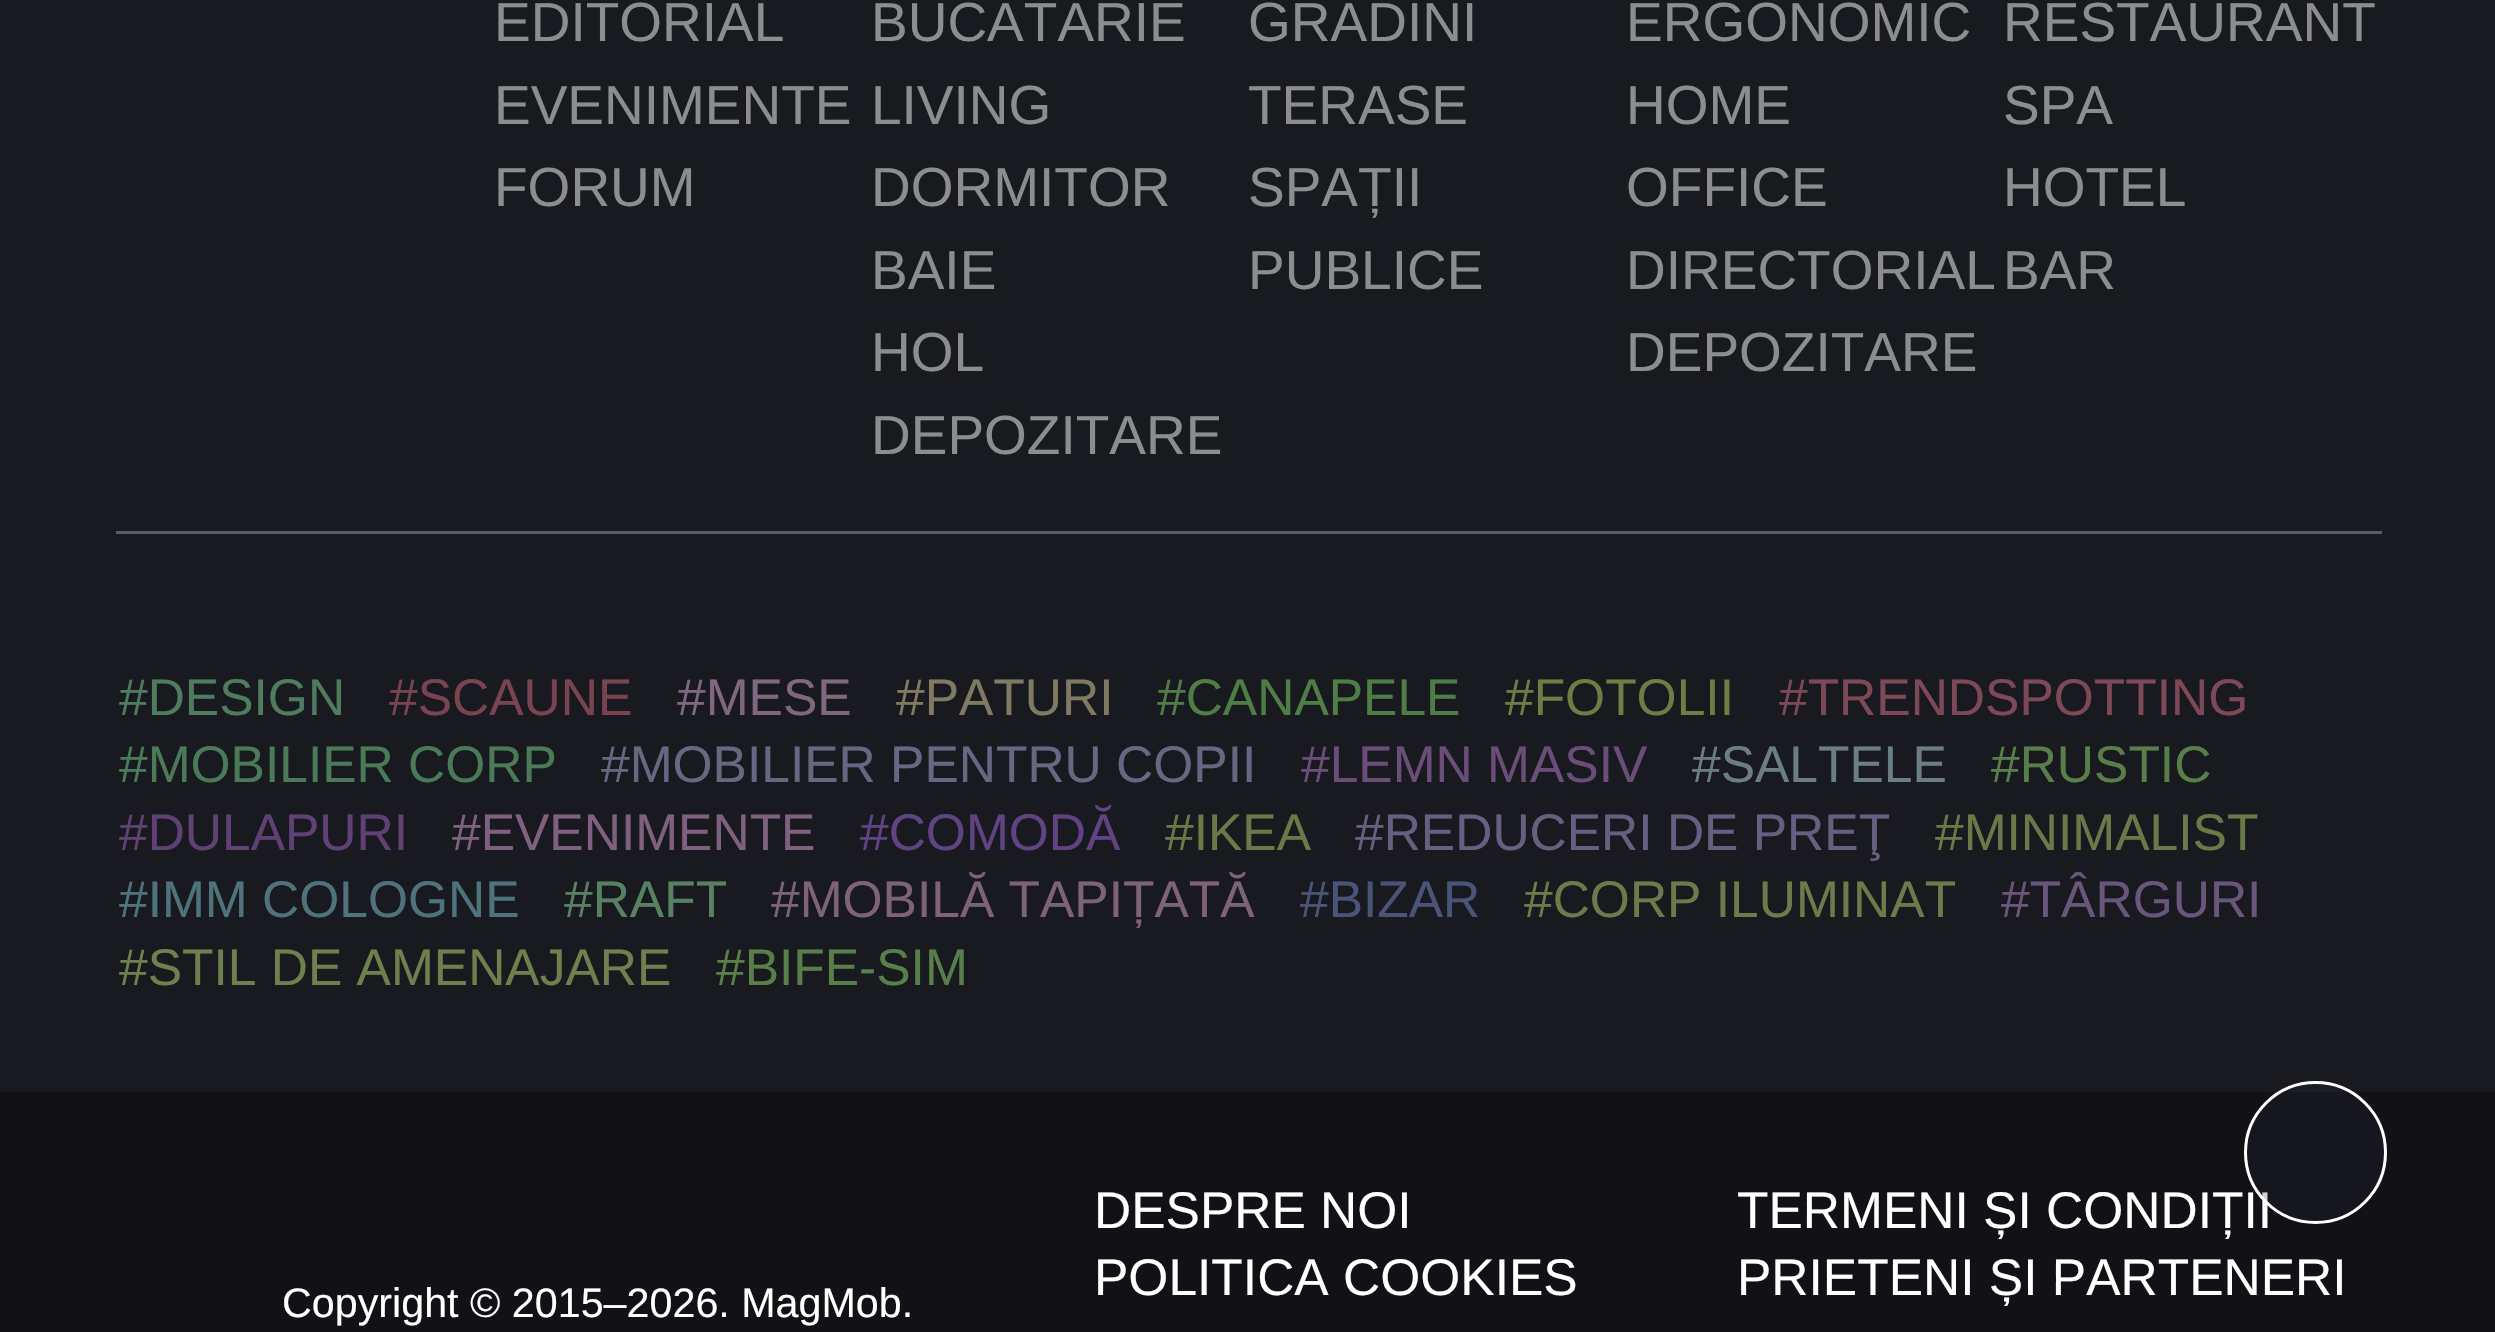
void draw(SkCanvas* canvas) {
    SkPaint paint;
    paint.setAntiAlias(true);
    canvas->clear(0xFF191A1F);
    paint.setColor(0xFF595D69);
    canvas->drawRect(SkRect::MakeXYWH(116, 531, 2266, 3), paint);
    SkFont font1(fontMgr->matchFamilyStyle("Liberation Sans", SkFontStyle::Normal()), 55);
    font1.setSubpixel(true);
    paint.setColor(0xFF8C8D8F);
    canvas->drawString("EDITORIAL", 494, 41, font1, paint);
    canvas->drawString("EVENIMENTE", 494, 124, font1, paint);
    canvas->drawString("FORUM", 494, 206, font1, paint);
    canvas->drawString("BUCĂTĂRIE", 871, 41, font1, paint);
    canvas->drawString("LIVING", 871, 124, font1, paint);
    canvas->drawString("DORMITOR", 871, 206, font1, paint);
    canvas->drawString("BAIE", 871, 289, font1, paint);
    canvas->drawString("HOL", 871, 371, font1, paint);
    canvas->drawString("DEPOZITARE", 871, 454, font1, paint);
    canvas->drawString("GRĂDINI", 1248, 41, font1, paint);
    canvas->drawString("TERASE", 1248, 124, font1, paint);
    canvas->drawString("SPAȚII", 1248, 206, font1, paint);
    canvas->drawString("PUBLICE", 1248, 289, font1, paint);
    canvas->drawString("ERGONOMIC", 1626, 41, font1, paint);
    canvas->drawString("HOME", 1626, 124, font1, paint);
    canvas->drawString("OFFICE", 1626, 206, font1, paint);
    canvas->drawString("DIRECTORIAL", 1626, 289, font1, paint);
    canvas->drawString("DEPOZITARE", 1626, 371, font1, paint);
    canvas->drawString("RESTAURANT", 2003, 41, font1, paint);
    canvas->drawString("SPA", 2003, 124, font1, paint);
    canvas->drawString("HOTEL", 2003, 206, font1, paint);
    canvas->drawString("BAR", 2003, 289, font1, paint);
    SkFont font2(fontMgr->matchFamilyStyle("Liberation Sans", SkFontStyle::Normal()), 51.5f);
    font2.setSubpixel(true);
    paint.setColor(0xFF4F7B5F);
    canvas->drawString("#DESIGN", 119, 715, font2, paint);
    paint.setColor(0xFF79444F);
    canvas->drawString("#SCAUNE", 389, 715, font2, paint);
    paint.setColor(0xFF7F677F);
    canvas->drawString("#MESE", 677, 715, font2, paint);
    paint.setColor(0xFF817A63);
    canvas->drawString("#PATURI", 896, 715, font2, paint);
    paint.setColor(0xFF4E7D46);
    canvas->drawString("#CANAPELE", 1157, 715, font2, paint);
    paint.setColor(0xFF6F7C43);
    canvas->drawString("#FOTOLII", 1505, 715, font2, paint);
    paint.setColor(0xFF7D4956);
    canvas->drawString("#TRENDSPOTTING", 1779, 715, font2, paint);
    paint.setColor(0xFF4A7A58);
    canvas->drawString("#MOBILIER CORP", 119, 782, font2, paint);
    paint.setColor(0xFF676784);
    canvas->drawString("#MOBILIER PENTRU COPII", 601, 782, font2, paint);
    paint.setColor(0xFF6A4E79);
    canvas->drawString("#LEMN MASIV", 1301, 782, font2, paint);
    paint.setColor(0xFF6A7E84);
    canvas->drawString("#SALTELE", 1692, 782, font2, paint);
    paint.setColor(0xFF587E49);
    canvas->drawString("#RUSTIC", 1991, 782, font2, paint);
    paint.setColor(0xFF604175);
    canvas->drawString("#DULAPURI", 119, 850, font2, paint);
    paint.setColor(0xFF7F607E);
    canvas->drawString("#EVENIMENTE", 452, 850, font2, paint);
    paint.setColor(0xFF604382);
    canvas->drawString("#COMODĂ", 860, 850, font2, paint);
    paint.setColor(0xFF697A48);
    canvas->drawString("#IKEA", 1165, 850, font2, paint);
    paint.setColor(0xFF675F81);
    canvas->drawString("#REDUCERI DE PREŢ", 1355, 850, font2, paint);
    paint.setColor(0xFF697A48);
    canvas->drawString("#MINIMALIST", 1935, 850, font2, paint);
    paint.setColor(0xFF4F737D);
    canvas->drawString("#IMM COLOGNE", 119, 917, font2, paint);
    paint.setColor(0xFF588162);
    canvas->drawString("#RAFT", 564, 917, font2, paint);
    paint.setColor(0xFF7E6375);
    canvas->drawString("#MOBILĂ TAPIȚATĂ", 771, 917, font2, paint);
    paint.setColor(0xFF4A5478);
    canvas->drawString("#BIZAR", 1300, 917, font2, paint);
    paint.setColor(0xFF6F7A4A);
    canvas->drawString("#CORP ILUMINAT", 1524, 917, font2, paint);
    paint.setColor(0xFF69567D);
    canvas->drawString("#TÂRGURI", 2001, 917, font2, paint);
    paint.setColor(0xFF6E804E);
    canvas->drawString("#STIL DE AMENAJARE", 119, 985, font2, paint);
    paint.setColor(0xFF587E49);
    canvas->drawString("#BIFE-SIM", 716, 985, font2, paint);
    paint.setColor(0xFF121216);
    canvas->drawRect(SkRect::MakeXYWH(0, 1092, 2495, 240), paint);
    SkFont font3(fontMgr->matchFamilyStyle("Liberation Sans", SkFontStyle::Normal()), 41.25f);
    font3.setSubpixel(true);
    paint.setColor(0xFFFFFFFF);
    canvas->drawString("Copyright © 2015–2026. MagMob.", 282, 1317, font3, paint);
    canvas->drawString("DESPRE NOI", 1094, 1228, font2, paint);
    canvas->drawString("TERMENI ȘI CONDIȚII", 1737, 1228, font2, paint);
    canvas->drawString("POLITICA COOKIES", 1094, 1295, font2, paint);
    canvas->drawString("PRIETENI ȘI PARTENERI", 1737, 1295, font2, paint);
    paint.setColor(0x3321293B);
    canvas->drawCircle(2315.5f, 1152.5f, 70, paint);
    paint.setStyle(SkPaint::kStroke_Style);
    paint.setStrokeWidth(3);
    paint.setColor(0xFFFFFFFF);
    canvas->drawCircle(2315.5f, 1152.5f, 70, paint);
}
